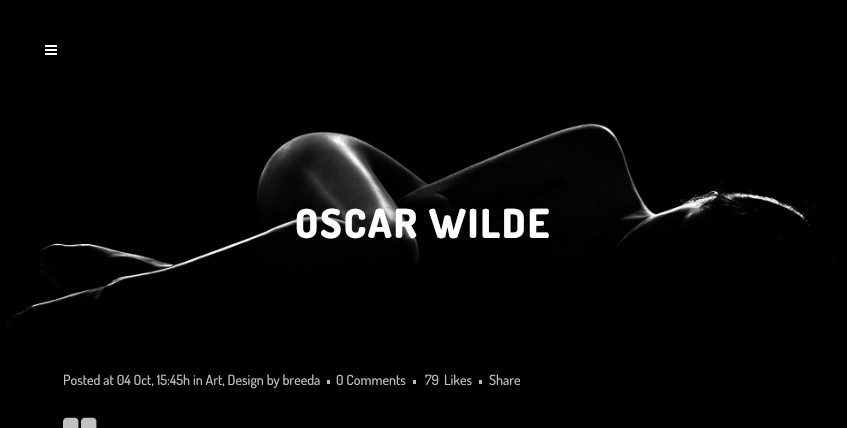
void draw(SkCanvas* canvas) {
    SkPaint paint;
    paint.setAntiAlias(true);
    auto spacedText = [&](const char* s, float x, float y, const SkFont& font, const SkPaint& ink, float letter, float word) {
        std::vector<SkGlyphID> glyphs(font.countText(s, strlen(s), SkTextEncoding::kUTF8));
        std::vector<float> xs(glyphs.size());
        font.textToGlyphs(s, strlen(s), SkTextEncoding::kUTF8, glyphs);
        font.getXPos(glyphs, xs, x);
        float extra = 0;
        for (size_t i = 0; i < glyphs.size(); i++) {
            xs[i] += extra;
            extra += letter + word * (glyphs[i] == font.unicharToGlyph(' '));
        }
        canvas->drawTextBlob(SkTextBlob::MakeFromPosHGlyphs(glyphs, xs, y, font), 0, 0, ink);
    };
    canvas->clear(0xFF000000);
    canvas->drawImageRect(SkImages::DeferredFromEncodedData(SkData::MakeFromFileName("img1.png")), SkRect::MakeXYWH(45, 45, 12, 10), SkSamplingOptions());
    canvas->drawImageRect(SkImages::DeferredFromEncodedData(SkData::MakeFromFileName("img2.png")), SkRect::MakeXYWH(1, 123, 833, 208), SkSamplingOptions());
    SkFont font1(fontMgr->matchFamilyStyle("Dosis", SkFontStyle(800, SkFontStyle::kNormal_Width, SkFontStyle::kUpright_Slant)), 40);
    font1.setSubpixel(true);
    paint.setColor(0xFFFFFFFF);
    spacedText("OSCAR WILDE", 295, 238, font1, paint, 2, 0);
    SkFont font2(fontMgr->matchFamilyStyle("Dosis", SkFontStyle(500, SkFontStyle::kNormal_Width, SkFontStyle::kUpright_Slant)), 14);
    font2.setSubpixel(true);
    paint.setColor(0xFFBEBEBE);
    canvas->drawString("Posted at 04 Oct, 15:45h in Art, Design by breeda", 63, 385, font2, paint);
    canvas->drawRect(SkRect::MakeXYWH(327, 380, 3, 4), paint);
    canvas->drawString("0 Comments", 336, 385, font2, paint);
    canvas->drawRect(SkRect::MakeXYWH(413, 380, 3, 4), paint);
    canvas->drawString("79", 425, 385, font2, paint);
    canvas->drawString("Likes", 444, 385, font2, paint);
    canvas->drawRect(SkRect::MakeXYWH(479, 380, 3, 4), paint);
    canvas->drawString("Share", 489, 385, font2, paint);
    canvas->drawImageRect(SkImages::DeferredFromEncodedData(SkData::MakeFromFileName("img3.png")), SkRect::MakeXYWH(63, 417, 34, 11), SkSamplingOptions());
}
